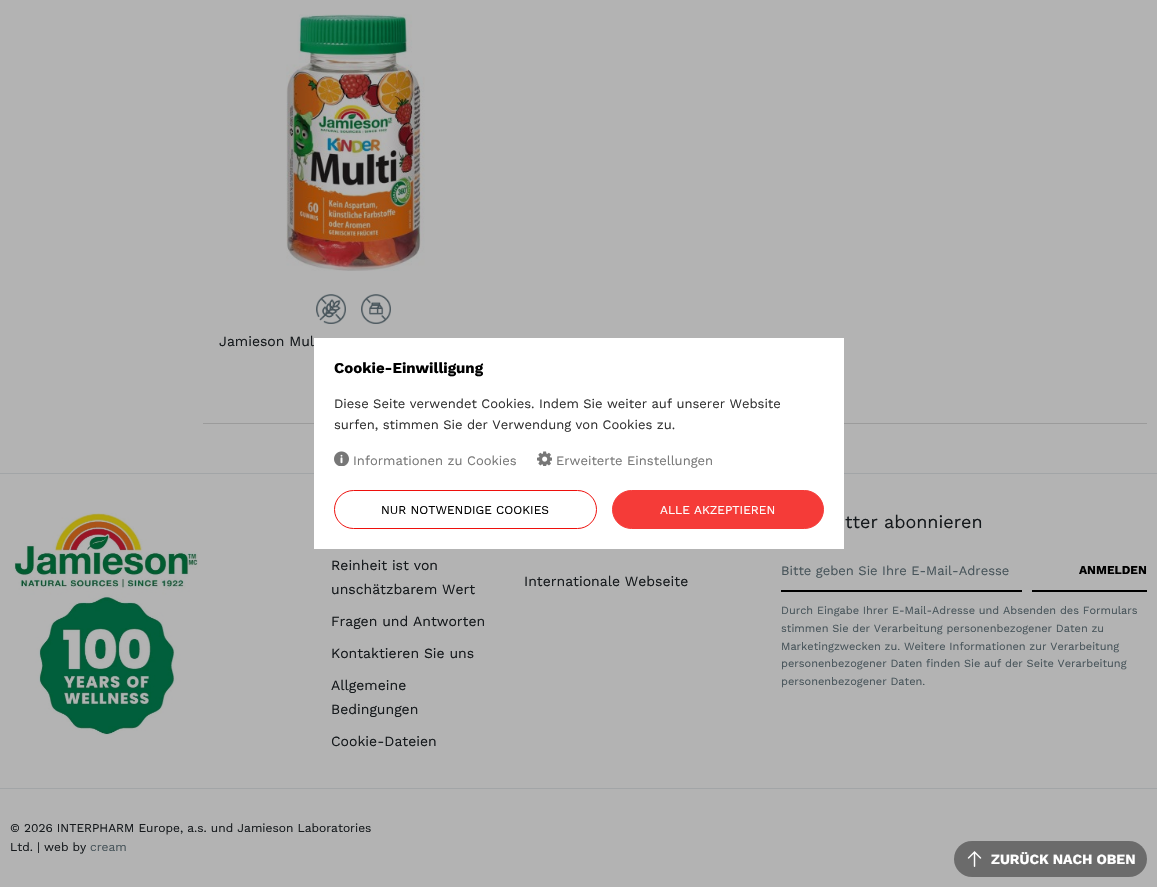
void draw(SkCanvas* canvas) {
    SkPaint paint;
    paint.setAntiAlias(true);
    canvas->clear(0xFFB3B3B3);
    canvas->drawImageRect(SkImages::DeferredFromEncodedData(SkData::MakeFromFileName("img1.png")), SkRect::MakeXYWH(286, 14, 139, 257), SkSamplingOptions());
    canvas->drawImageRect(SkImages::DeferredFromEncodedData(SkData::MakeFromFileName("img2.png")), SkRect::MakeXYWH(316, 294, 30, 30), SkSamplingOptions());
    canvas->drawImageRect(SkImages::DeferredFromEncodedData(SkData::MakeFromFileName("img3.png")), SkRect::MakeXYWH(361, 294, 30, 30), SkSamplingOptions());
    SkFont font1(fontMgr->matchFamilyStyle("Work Sans", SkFontStyle::Normal()), 14);
    font1.setSubpixel(true);
    paint.setColor(0xFF15191C);
    canvas->drawString("Jamieson Mul", 219, 346, font1, paint);
    paint.setColor(0xFF9B9B9B);
    canvas->drawRect(SkRect::MakeXYWH(203, 423, 944, 1), paint);
    paint.setColor(0xFFA2A5A7);
    canvas->drawRect(SkRect::MakeXYWH(0, 473, 1157, 1), paint);
    paint.setColor(0xFFFFFFFF);
    canvas->drawRect(SkRect::MakeXYWH(314, 338, 530, 211), paint);
    SkFont font2(fontMgr->matchFamilyStyle("Work Sans", SkFontStyle::Bold()), 15);
    font2.setSubpixel(true);
    paint.setColor(0xFF000000);
    canvas->drawString("Cookie-Einwilligung", 334, 373, font2, paint);
    SkFont font3(fontMgr->matchFamilyStyle("Work Sans", SkFontStyle::Normal()), 13);
    font3.setSubpixel(true);
    paint.setColor(0xFF333333);
    canvas->drawString("Diese Seite verwendet Cookies. Indem Sie weiter auf unserer Website", 334, 408, font3, paint);
    canvas->drawString("surfen, stimmen Sie der Verwendung von Cookies zu.", 334, 429, font3, paint);
    canvas->drawImageRect(SkImages::DeferredFromEncodedData(SkData::MakeFromFileName("img4.png")), SkRect::MakeXYWH(334, 451, 15, 15), SkSamplingOptions());
    paint.setColor(0xFF777777);
    canvas->drawString("Informationen zu Cookies", 353, 465, font3, paint);
    canvas->drawImageRect(SkImages::DeferredFromEncodedData(SkData::MakeFromFileName("img5.png")), SkRect::MakeXYWH(537, 451, 15, 15), SkSamplingOptions());
    canvas->drawString("Erweiterte Einstellungen", 556, 465, font3, paint);
    paint.setStyle(SkPaint::kStroke_Style);
    paint.setStrokeWidth(1);
    paint.setColor(0xFFEE100C);
    canvas->drawRoundRect(SkRect::MakeXYWH(334.5f, 490.5f, 262, 38), 19, 19, paint);
    SkFont font4(fontMgr->matchFamilyStyle("Work Sans", SkFontStyle::Normal()), 12);
    font4.setSubpixel(true);
    paint.setStyle(SkPaint::kFill_Style);
    paint.setColor(0xFF000000);
    canvas->drawString("NUR NOTWENDIGE COOKIES", 381, 514, font4, paint);
    paint.setColor(0xFFF53B38);
    canvas->drawRoundRect(SkRect::MakeXYWH(612.5f, 490.5f, 211, 38), 19, 19, paint);
    paint.setStyle(SkPaint::kStroke_Style);
    canvas->drawRoundRect(SkRect::MakeXYWH(612.5f, 490.5f, 211, 38), 19, 19, paint);
    paint.setStyle(SkPaint::kFill_Style);
    paint.setColor(0xFFFFFFFF);
    canvas->drawString("ALLE AKZEPTIEREN", 660, 514, font4, paint);
    canvas->drawImageRect(SkImages::DeferredFromEncodedData(SkData::MakeFromFileName("img6.png")), SkRect::MakeXYWH(14, 513, 184, 222), SkSamplingOptions());
    paint.setColor(0xFF15191C);
    canvas->drawString("Reinheit ist von", 331, 570, font1, paint);
    canvas->drawString("unschätzbarem Wert", 331, 594, font1, paint);
    canvas->drawString("Fragen und Antworten", 331, 626, font1, paint);
    canvas->drawString("Kontaktieren Sie uns", 331, 658, font1, paint);
    canvas->drawString("Allgemeine", 331, 690, font1, paint);
    canvas->drawString("Bedingungen", 331, 714, font1, paint);
    canvas->drawString("Cookie-Dateien", 331, 746, font1, paint);
    canvas->drawString("Internationale Webseite", 524, 586, font1, paint);
    SkFont font5(fontMgr->matchFamilyStyle("Work Sans", SkFontStyle::Normal()), 18);
    font5.setSubpixel(true);
    canvas->drawString("tter abonnieren", 845, 528, font5, paint);
    paint.setColor(0xFF000000);
    canvas->drawRect(SkRect::MakeXYWH(781, 590, 241, 2), paint);
    paint.setColor(0xFF47545A);
    canvas->drawString("Bitte geben Sie Ihre E-Mail-Adresse", 781, 575, font3, paint);
    paint.setColor(0xFF000000);
    canvas->drawRect(SkRect::MakeXYWH(1032, 590, 115, 2), paint);
    SkFont font6(fontMgr->matchFamilyStyle("Work Sans", SkFontStyle::Bold()), 12);
    font6.setSubpixel(true);
    canvas->drawString("ANMELDEN", 1079, 574, font6, paint);
    SkFont font7(fontMgr->matchFamilyStyle("Work Sans", SkFontStyle::Normal()), 11);
    font7.setSubpixel(true);
    paint.setColor(0xFF47545A);
    canvas->drawString("Durch Eingabe Ihrer E-Mail-Adresse und Absenden des Formulars", 781, 614, font7, paint);
    canvas->drawString("stimmen Sie der Verarbeitung personenbezogener Daten zu", 781, 632, font7, paint);
    canvas->drawString("Marketingzwecken zu. Weitere Informationen zur Verarbeitung", 781, 650, font7, paint);
    canvas->drawString("personenbezogener Daten finden Sie auf der Seite Verarbeitung", 781, 667, font7, paint);
    canvas->drawString("personenbezogener Daten.", 781, 685, font7, paint);
    paint.setColor(0xFFA2A5A7);
    canvas->drawRect(SkRect::MakeXYWH(0, 788, 1157, 1), paint);
    paint.setColor(0xFF15191C);
    canvas->drawString("© 2026 INTERPHARM Europe, a.s. und Jamieson Laboratories", 10, 832, font4, paint);
    canvas->drawString("Ltd. | web by", 10, 851, font4, paint);
    paint.setColor(0xFF47545A);
    canvas->drawString("cream", 90, 851, font4, paint);
    paint.setColor(0xFF6B6B6B);
    canvas->drawRoundRect(SkRect::MakeXYWH(954, 841, 193, 36), 18, 18, paint);
    canvas->drawImageRect(SkImages::DeferredFromEncodedData(SkData::MakeFromFileName("img7.png")), SkRect::MakeXYWH(967, 851, 15, 16), SkSamplingOptions());
    SkFont font8(fontMgr->matchFamilyStyle("Work Sans", SkFontStyle::Bold()), 14);
    font8.setSubpixel(true);
    paint.setColor(0xFFFFFFFF);
    canvas->drawString("ZURÜCK NACH OBEN", 991, 864, font8, paint);
}
